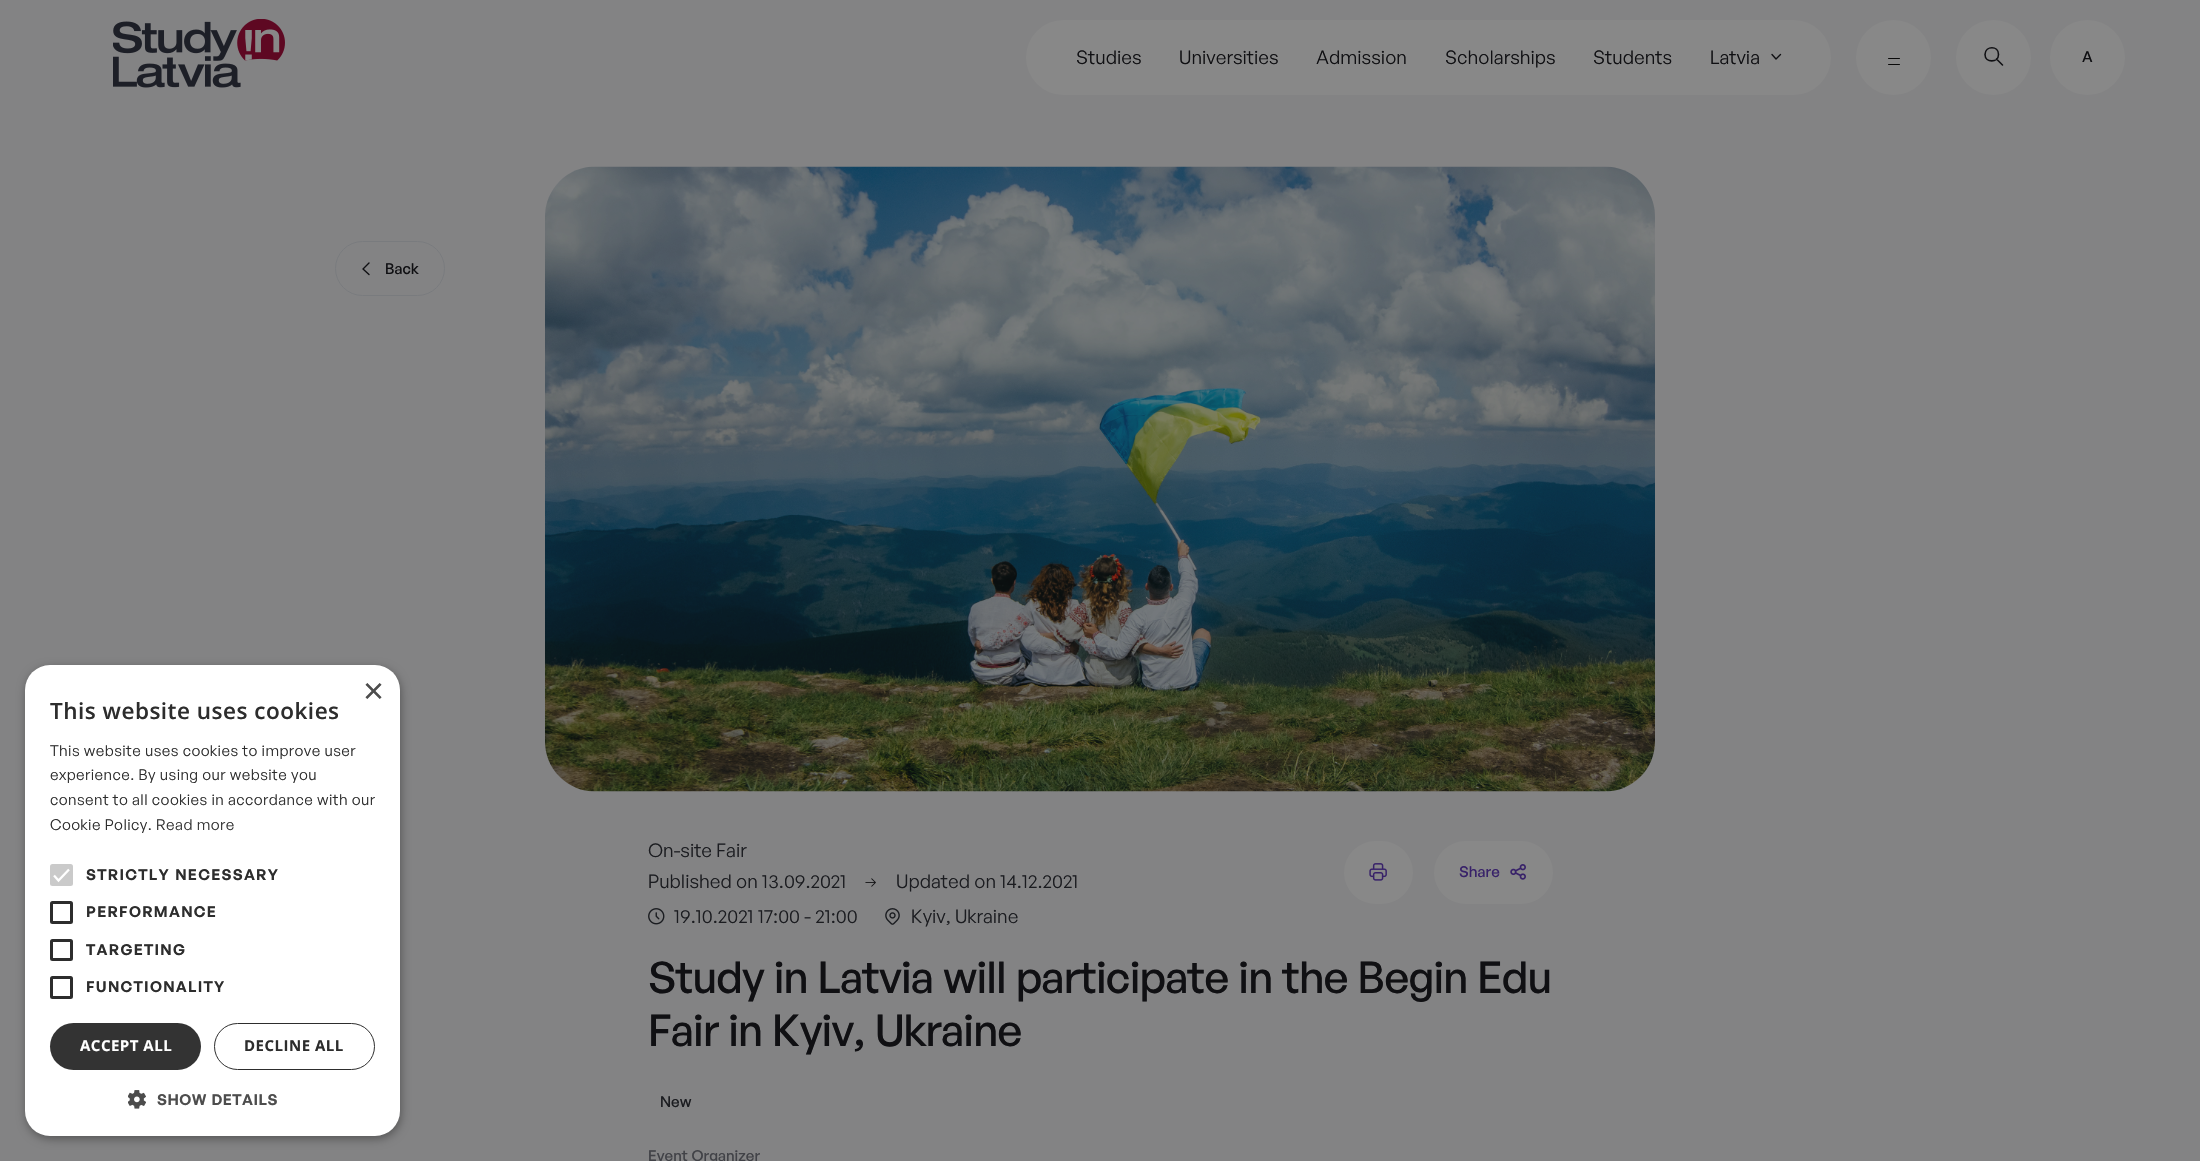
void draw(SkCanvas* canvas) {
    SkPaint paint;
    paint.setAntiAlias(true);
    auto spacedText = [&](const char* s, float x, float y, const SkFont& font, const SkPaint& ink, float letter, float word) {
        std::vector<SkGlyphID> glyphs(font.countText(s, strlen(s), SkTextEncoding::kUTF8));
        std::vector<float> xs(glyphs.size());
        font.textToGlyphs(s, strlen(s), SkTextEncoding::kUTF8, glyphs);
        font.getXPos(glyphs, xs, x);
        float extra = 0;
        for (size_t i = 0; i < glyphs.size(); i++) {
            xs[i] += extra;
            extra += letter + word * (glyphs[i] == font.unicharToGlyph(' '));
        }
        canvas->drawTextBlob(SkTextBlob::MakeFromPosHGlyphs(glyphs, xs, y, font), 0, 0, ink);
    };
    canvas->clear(0xFF838384);
    paint.setColor(0x59000000);
    paint.setMaskFilter(SkMaskFilter::MakeBlur(kNormal_SkBlurStyle, 5));
    canvas->drawRoundRect(SkRect::MakeXYWH(26, 668, 375, 471), 25, 25, paint);
    paint.setMaskFilter(nullptr);
    paint.setColor(0xFFFFFFFF);
    canvas->drawRoundRect(SkRect::MakeXYWH(25, 665, 375, 471), 25, 25, paint);
    SkFont font1(fontMgr->matchFamilyStyle("Liberation Sans", SkFontStyle::Normal()), 36);
    font1.setSubpixel(true);
    paint.setColor(0xFF4D4D4D);
    canvas->drawString("×", 363, 703, font1, paint);
    SkFont font2(fontMgr->matchFamilyStyle("Open Sans", SkFontStyle(600, SkFontStyle::kNormal_Width, SkFontStyle::kUpright_Slant)), 22.5f);
    font2.setSubpixel(true);
    paint.setColor(0xFF2D2D2D);
    spacedText("This website uses cookies", 50, 719, font2, paint, 0.5f, 0);
    SkFont font3(fontMgr->matchFamilyStyle("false", SkFontStyle::Normal()), 15);
    font3.setSubpixel(true);
    spacedText("This website uses cookies to improve user", 50, 756, font3, paint, 0.4f, 0);
    spacedText("experience. By using our website you", 50, 780, font3, paint, 0.4f, 0);
    spacedText("consent to all cookies in accordance with our", 50, 805, font3, paint, 0.4f, 0);
    spacedText("Cookie Policy.", 50, 830, font3, paint, 0.4f, 0);
    paint.setColor(0xFF333333);
    spacedText("Read more", 156, 830, font3, paint, 0.4f, 0);
    paint.setColor(0xFFCACACA);
    canvas->drawRoundRect(SkRect::MakeXYWH(50, 864, 23, 22), 2.5f, 2.5f, paint);
    paint.setStyle(SkPaint::kStroke_Style);
    paint.setStrokeWidth(2.3f);
    paint.setColor(0xFFFFFFFF);
    canvas->drawPath(SkPathBuilder().moveTo(54, 875.5f).lineTo(58.5f, 880.5f).lineTo(69, 869.5f).detach(), paint);
    SkFont font4(fontMgr->matchFamilyStyle("General Sans", SkFontStyle(600, SkFontStyle::kNormal_Width, SkFontStyle::kUpright_Slant)), 15);
    font4.setSubpixel(true);
    paint.setStyle(SkPaint::kFill_Style);
    paint.setColor(0xFF2D2D2D);
    spacedText("STRICTLY NECESSARY", 86, 880, font4, paint, 1.25f, 0);
    paint.setStyle(SkPaint::kStroke_Style);
    paint.setStrokeWidth(3);
    canvas->drawRoundRect(SkRect::MakeXYWH(51.5f, 902.5f, 20, 20), 1, 1, paint);
    paint.setStyle(SkPaint::kFill_Style);
    spacedText("PERFORMANCE", 86, 917, font4, paint, 1.25f, 0);
    paint.setStyle(SkPaint::kStroke_Style);
    canvas->drawRoundRect(SkRect::MakeXYWH(51.5f, 940.5f, 20, 19), 1, 1, paint);
    paint.setStyle(SkPaint::kFill_Style);
    spacedText("TARGETING", 86, 955, font4, paint, 1.25f, 0);
    paint.setStyle(SkPaint::kStroke_Style);
    canvas->drawRoundRect(SkRect::MakeXYWH(51.5f, 977.5f, 20, 20), 1, 1, paint);
    paint.setStyle(SkPaint::kFill_Style);
    spacedText("FUNCTIONALITY", 86, 992, font4, paint, 1.25f, 0);
    paint.setColor(0xFF333333);
    canvas->drawRoundRect(SkRect::MakeXYWH(50, 1023, 151, 47), 23.5f, 23.5f, paint);
    SkFont font5(fontMgr->matchFamilyStyle("Open Sans", SkFontStyle::Bold()), 15);
    font5.setSubpixel(true);
    paint.setColor(0xFFFFFFFF);
    spacedText("ACCEPT ALL", 80, 1051, font5, paint, 0.5f, 0);
    paint.setStyle(SkPaint::kStroke_Style);
    paint.setStrokeWidth(1);
    paint.setColor(0xFF2D2D2D);
    canvas->drawRoundRect(SkRect::MakeXYWH(214.5f, 1023.5f, 160, 46), 23, 23, paint);
    paint.setStyle(SkPaint::kFill_Style);
    spacedText("DECLINE ALL", 244, 1051, font5, paint, 0.5f, 0);
    canvas->drawImageRect(SkImages::DeferredFromEncodedData(SkData::MakeFromFileName("img1.png")), SkRect::MakeXYWH(128, 1090, 18, 19), SkSamplingOptions());
    paint.setColor(0xFF4D4D4D);
    spacedText("SHOW DETAILS", 157, 1105, font4, paint, 0.5f, 0);
    canvas->drawImageRect(SkImages::DeferredFromEncodedData(SkData::MakeFromFileName("img2.png")), SkRect::MakeXYWH(113, 19, 172, 69), SkSamplingOptions());
    paint.setColor(0xFF888888);
    canvas->drawRoundRect(SkRect::MakeXYWH(1026, 20, 805, 75), 37.5f, 37.5f, paint);
    SkFont font6(fontMgr->matchFamilyStyle("false", SkFontStyle::Normal()), 18.75f);
    font6.setSubpixel(true);
    paint.setColor(0xFF101013);
    canvas->drawString("Studies", 1076, 64, font6, paint);
    canvas->drawString("Universities", 1179, 64, font6, paint);
    canvas->drawString("Admission", 1316, 64, font6, paint);
    canvas->drawString("Scholarships", 1445, 64, font6, paint);
    canvas->drawString("Students", 1593, 64, font6, paint);
    canvas->drawString("Latvia", 1710, 64, font6, paint);
    paint.setStyle(SkPaint::kStroke_Style);
    paint.setStrokeWidth(1.4f);
    paint.setStrokeCap(SkPaint::kRound_Cap);
    paint.setStrokeJoin(SkPaint::kRound_Join);
    canvas->drawPath(SkPathBuilder().moveTo(1780.5f, 54.5f).lineTo(1776, 59).lineTo(1772, 54.5f).detach(), paint);
    paint.setStyle(SkPaint::kFill_Style);
    paint.setColor(0xFF888888);
    canvas->drawCircle(1893.5f, 57.5f, 37.5f, paint);
    paint.setColor(0xFF090909);
    canvas->drawRoundRect(SkRect::MakeXYWH(1888, 58, 12, 1), 0.5f, 0.5f, paint);
    canvas->drawRoundRect(SkRect::MakeXYWH(1888, 64, 12, 1), 0.5f, 0.5f, paint);
    paint.setColor(0xFF888888);
    canvas->drawCircle(1993.5f, 57.5f, 37.5f, paint);
    paint.setStyle(SkPaint::kStroke_Style);
    paint.setStrokeWidth(1.6f);
    paint.setColor(0xFF101013);
    canvas->drawPath(SkPathBuilder().moveTo(2002.5f, 65).lineTo(1996.5f, 59).close().moveTo(1998.5f, 54.5f).cubicTo(1998.5f, 63, 1985, 63, 1985, 54.5f).cubicTo(1985.5f, 45.5f, 1998.5f, 45.5f, 1998.5f, 54.5f).close().detach(), paint);
    paint.setStyle(SkPaint::kFill_Style);
    paint.setColor(0xFF888888);
    canvas->drawCircle(2087.5f, 57.5f, 37.5f, paint);
    SkFont font7(fontMgr->matchFamilyStyle("General Sans", SkFontStyle(500, SkFontStyle::kNormal_Width, SkFontStyle::kUpright_Slant)), 15);
    font7.setSubpixel(true);
    paint.setColor(0xFF101013);
    canvas->drawString("A", 2082, 62, font7, paint);
    paint.setStyle(SkPaint::kStroke_Style);
    paint.setStrokeWidth(1);
    paint.setStrokeCap(SkPaint::kButt_Cap);
    paint.setStrokeJoin(SkPaint::kMiter_Join);
    paint.setColor(0xFF797B7E);
    canvas->drawRoundRect(SkRect::MakeXYWH(335.5f, 241.5f, 109, 54), 27, 27, paint);
    paint.setStrokeWidth(1.4f);
    paint.setStrokeCap(SkPaint::kRound_Cap);
    paint.setStrokeJoin(SkPaint::kRound_Join);
    paint.setColor(0xFF101013);
    canvas->drawPath(SkPathBuilder().moveTo(369, 274.5f).lineTo(363, 269).lineTo(369, 263).detach(), paint);
    paint.setStyle(SkPaint::kFill_Style);
    canvas->drawString("Back", 385, 274, font7, paint);
    canvas->drawImageRect(SkImages::DeferredFromEncodedData(SkData::MakeFromFileName("img3.png")), SkRect::MakeXYWH(545, 166, 1110, 626), SkSamplingOptions());
    paint.setColor(0xFF1B1C20);
    canvas->drawString("On-site Fair", 648, 857, font6, paint);
    canvas->drawString("Published on 13.09.2021", 648, 888, font6, paint);
    canvas->drawImageRect(SkImages::DeferredFromEncodedData(SkData::MakeFromFileName("img4.png")), SkRect::MakeXYWH(865, 878, 11, 9), SkSamplingOptions());
    canvas->drawString("Updated on 14.12.2021", 896, 888, font6, paint);
    canvas->drawImageRect(SkImages::DeferredFromEncodedData(SkData::MakeFromFileName("img5.png")), SkRect::MakeXYWH(648, 908, 17, 17), SkSamplingOptions());
    canvas->drawString("19.10.2021 17:00 - 21:00", 674, 923, font6, paint);
    canvas->drawImageRect(SkImages::DeferredFromEncodedData(SkData::MakeFromFileName("img6.png")), SkRect::MakeXYWH(885, 908, 15, 17), SkSamplingOptions());
    canvas->drawString("Kyiv, Ukraine", 911, 923, font6, paint);
    paint.setColor(0xFF888888);
    canvas->drawRoundRect(SkRect::MakeXYWH(1344, 841, 69, 63), 31.5f, 31.5f, paint);
    canvas->drawImageRect(SkImages::DeferredFromEncodedData(SkData::MakeFromFileName("img7.png")), SkRect::MakeXYWH(1369, 863, 18, 18), SkSamplingOptions());
    canvas->drawRoundRect(SkRect::MakeXYWH(1434, 841, 119, 63), 31.5f, 31.5f, paint);
    paint.setColor(0xFF382269);
    canvas->drawString("Share", 1459, 877, font7, paint);
    canvas->drawImageRect(SkImages::DeferredFromEncodedData(SkData::MakeFromFileName("img8.png")), SkRect::MakeXYWH(1510, 864, 16, 16), SkSamplingOptions());
    SkFont font8(fontMgr->matchFamilyStyle("General Sans", SkFontStyle(500, SkFontStyle::kNormal_Width, SkFontStyle::kUpright_Slant)), 43.75f);
    font8.setSubpixel(true);
    paint.setColor(0xFF101013);
    spacedText("Study in Latvia will participate in the Begin Edu", 648, 993, font8, paint, -0.9f, 0);
    spacedText("Fair in Kyiv, Ukraine", 648, 1046, font8, paint, -0.9f, 0);
    paint.setColor(0xFF1B1C20);
    canvas->drawString("New", 660, 1107, font7, paint);
    paint.setColor(0xFF414247);
    canvas->drawString("Event Organizer", 648, 1161, font7, paint);
}
